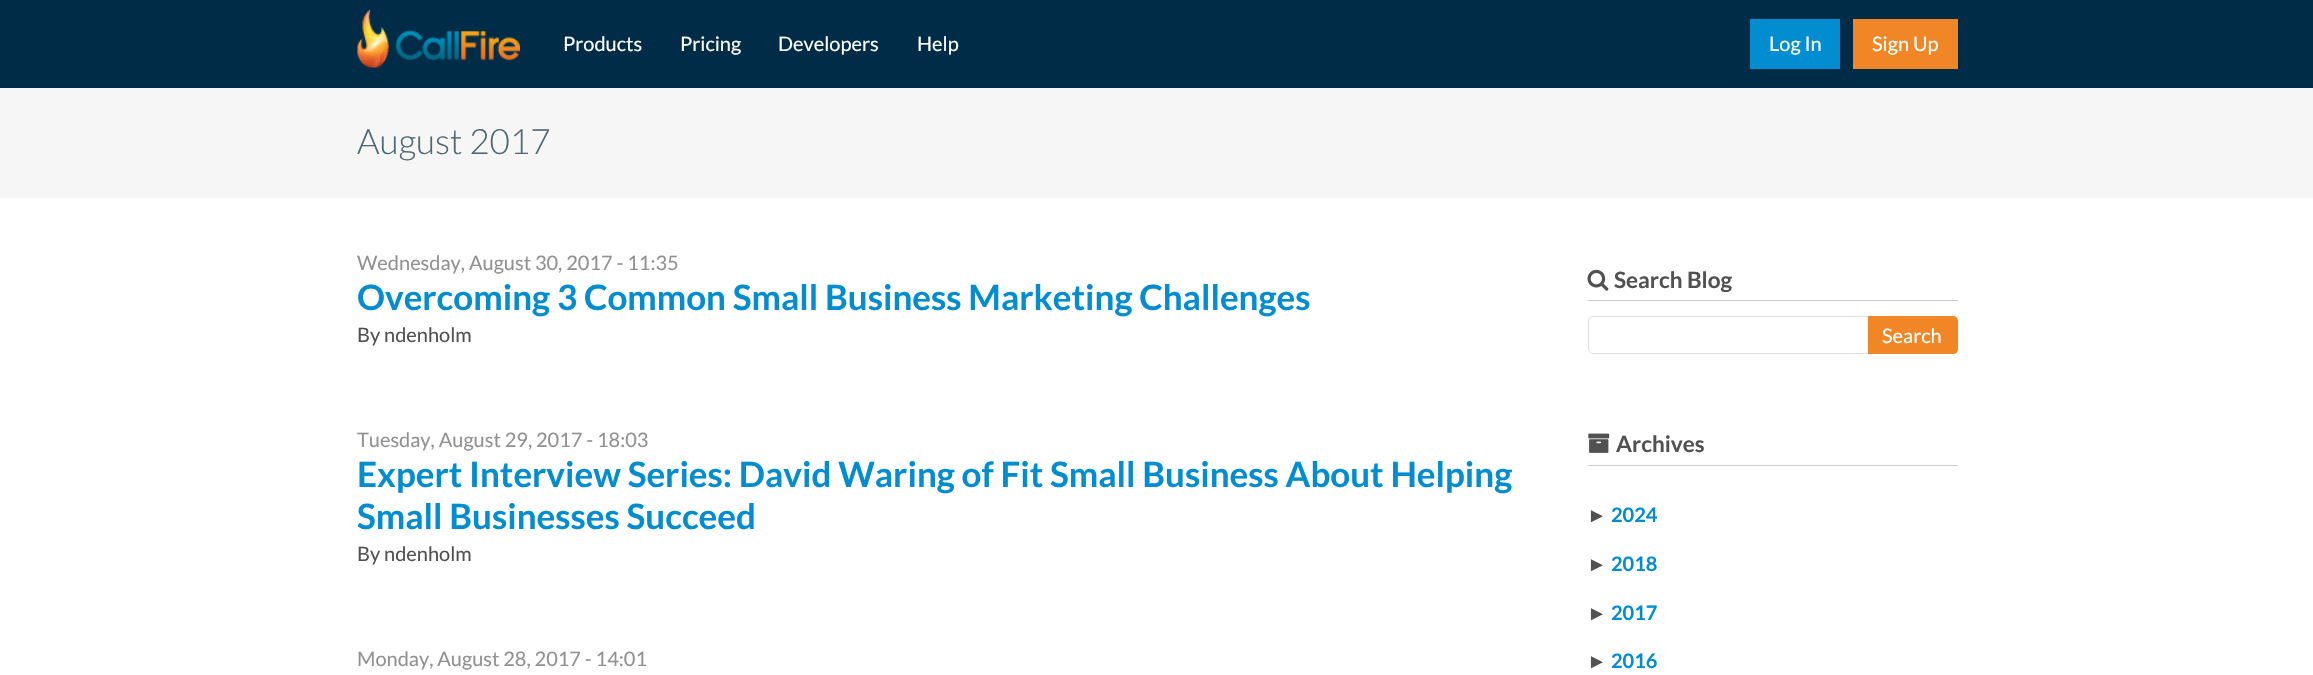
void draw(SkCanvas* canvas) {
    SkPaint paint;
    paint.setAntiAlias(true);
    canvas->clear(0xFFFFFFFF);
    paint.setColor(0xFF002C47);
    canvas->drawRect(SkRect::MakeXYWH(0, 0, 2313, 88), paint);
    canvas->drawImageRect(SkImages::DeferredFromEncodedData(SkData::MakeFromFileName("img1.png")), SkRect::MakeXYWH(357, 10, 163, 58), SkSamplingOptions());
    SkFont font1(fontMgr->matchFamilyStyle("Lato", SkFontStyle::Normal()), 20);
    font1.setSubpixel(true);
    paint.setColor(0xFFFFFFFF);
    canvas->drawString("Products", 563, 51, font1, paint);
    canvas->drawString("Pricing", 680, 51, font1, paint);
    canvas->drawString("Developers", 778, 51, font1, paint);
    canvas->drawString("Help", 917, 51, font1, paint);
    paint.setColor(0xFF028DD0);
    canvas->drawRect(SkRect::MakeXYWH(1750, 19, 90, 50), paint);
    paint.setColor(0xFFFFFFFF);
    canvas->drawString("Log In", 1769, 51, font1, paint);
    paint.setColor(0xFFF18627);
    canvas->drawRect(SkRect::MakeXYWH(1853, 19, 105, 50), paint);
    paint.setColor(0xFFFFFFFF);
    canvas->drawString("Sign Up", 1872, 51, font1, paint);
    paint.setColor(0xFFF6F6F6);
    canvas->drawRect(SkRect::MakeXYWH(0, 88, 2313, 110), paint);
    SkFont font2(fontMgr->matchFamilyStyle("Lato", SkFontStyle(300, SkFontStyle::kNormal_Width, SkFontStyle::kUpright_Slant)), 35);
    font2.setSubpixel(true);
    paint.setColor(0xFF4D6871);
    canvas->drawString("August 2017", 357, 154, font2, paint);
    paint.setColor(0xFF919191);
    canvas->drawString("Wednesday, August 30, 2017 - 11:35", 357, 270, font1, paint);
    SkFont font3(fontMgr->matchFamilyStyle("Lato", SkFontStyle::Bold()), 35);
    font3.setSubpixel(true);
    paint.setColor(0xFF028DD0);
    canvas->drawString("Overcoming 3 Common Small Business Marketing Challenges", 357, 310, font3, paint);
    paint.setColor(0xFF515151);
    canvas->drawString("By ndenholm", 357, 342, font1, paint);
    paint.setColor(0xFF919191);
    canvas->drawString("Tuesday, August 29, 2017 - 18:03", 357, 447, font1, paint);
    paint.setColor(0xFF028DD0);
    canvas->drawString("Expert Interview Series: David Waring of Fit Small Business About Helping", 357, 487, font3, paint);
    canvas->drawString("Small Businesses Succeed", 357, 529, font3, paint);
    paint.setColor(0xFF515151);
    canvas->drawString("By ndenholm", 357, 561, font1, paint);
    paint.setColor(0xFF919191);
    canvas->drawString("Monday, August 28, 2017 - 14:01", 357, 666, font1, paint);
    paint.setColor(0xFFCCCCCC);
    canvas->drawRect(SkRect::MakeXYWH(1588, 300, 370, 1), paint);
    canvas->drawImageRect(SkImages::DeferredFromEncodedData(SkData::MakeFromFileName("img2.png")), SkRect::MakeXYWH(1587, 269, 22, 22), SkSamplingOptions());
    SkFont font4(fontMgr->matchFamilyStyle("Lato", SkFontStyle::Bold()), 22.5f);
    font4.setSubpixel(true);
    paint.setColor(0xFF515151);
    canvas->drawString("Search Blog", 1614, 288, font4, paint);
    paint.setStyle(SkPaint::kStroke_Style);
    paint.setStrokeWidth(1);
    paint.setColor(0xFFDEE2E6);
    canvas->drawPath(SkPathBuilder().moveTo(1593, 316.5f).lineTo(1868.5f, 316.5f).lineTo(1868.5f, 353.5f).lineTo(1593, 353.5f).cubicTo(1590.5f, 353.5f, 1588.5f, 351.5f, 1588.5f, 349).lineTo(1588.5f, 321).cubicTo(1588.5f, 318.5f, 1590.5f, 316.5f, 1593, 316.5f).close().detach(), paint);
    paint.setStyle(SkPaint::kFill_Style);
    paint.setColor(0xFFF18627);
    canvas->drawPath(SkPathBuilder().moveTo(1868, 316).lineTo(1953, 316).cubicTo(1956, 316, 1958, 318, 1958, 321).lineTo(1958, 349).cubicTo(1958, 352, 1956, 354, 1953, 354).lineTo(1868, 354).close().detach(), paint);
    paint.setColor(0xFFFFFFFF);
    canvas->drawString("Search", 1882, 343, font1, paint);
    paint.setColor(0xFFCCCCCC);
    canvas->drawRect(SkRect::MakeXYWH(1588, 465, 370, 1), paint);
    canvas->drawImageRect(SkImages::DeferredFromEncodedData(SkData::MakeFromFileName("img3.png")), SkRect::MakeXYWH(1588, 433, 22, 20), SkSamplingOptions());
    paint.setColor(0xFF515151);
    canvas->drawString("Archives", 1616, 452, font4, paint);
    SkFont font5(fontMgr->matchFamilyStyle("Liberation Sans", SkFontStyle::Bold()), 20);
    font5.setSubpixel(true);
    canvas->drawString("►", 1587, 522, font5, paint);
    SkFont font6(fontMgr->matchFamilyStyle("Lato", SkFontStyle::Bold()), 20);
    font6.setSubpixel(true);
    paint.setColor(0xFF028DD0);
    canvas->drawString("2024", 1611, 522, font6, paint);
    paint.setColor(0xFF515151);
    canvas->drawString("►", 1587, 571, font5, paint);
    paint.setColor(0xFF028DD0);
    canvas->drawString("2018", 1611, 571, font6, paint);
    paint.setColor(0xFF515151);
    canvas->drawString("►", 1587, 620, font5, paint);
    paint.setColor(0xFF028DD0);
    canvas->drawString("2017", 1611, 620, font6, paint);
    paint.setColor(0xFF515151);
    canvas->drawString("►", 1587, 668, font5, paint);
    paint.setColor(0xFF028DD0);
    canvas->drawString("2016", 1611, 668, font6, paint);
}
